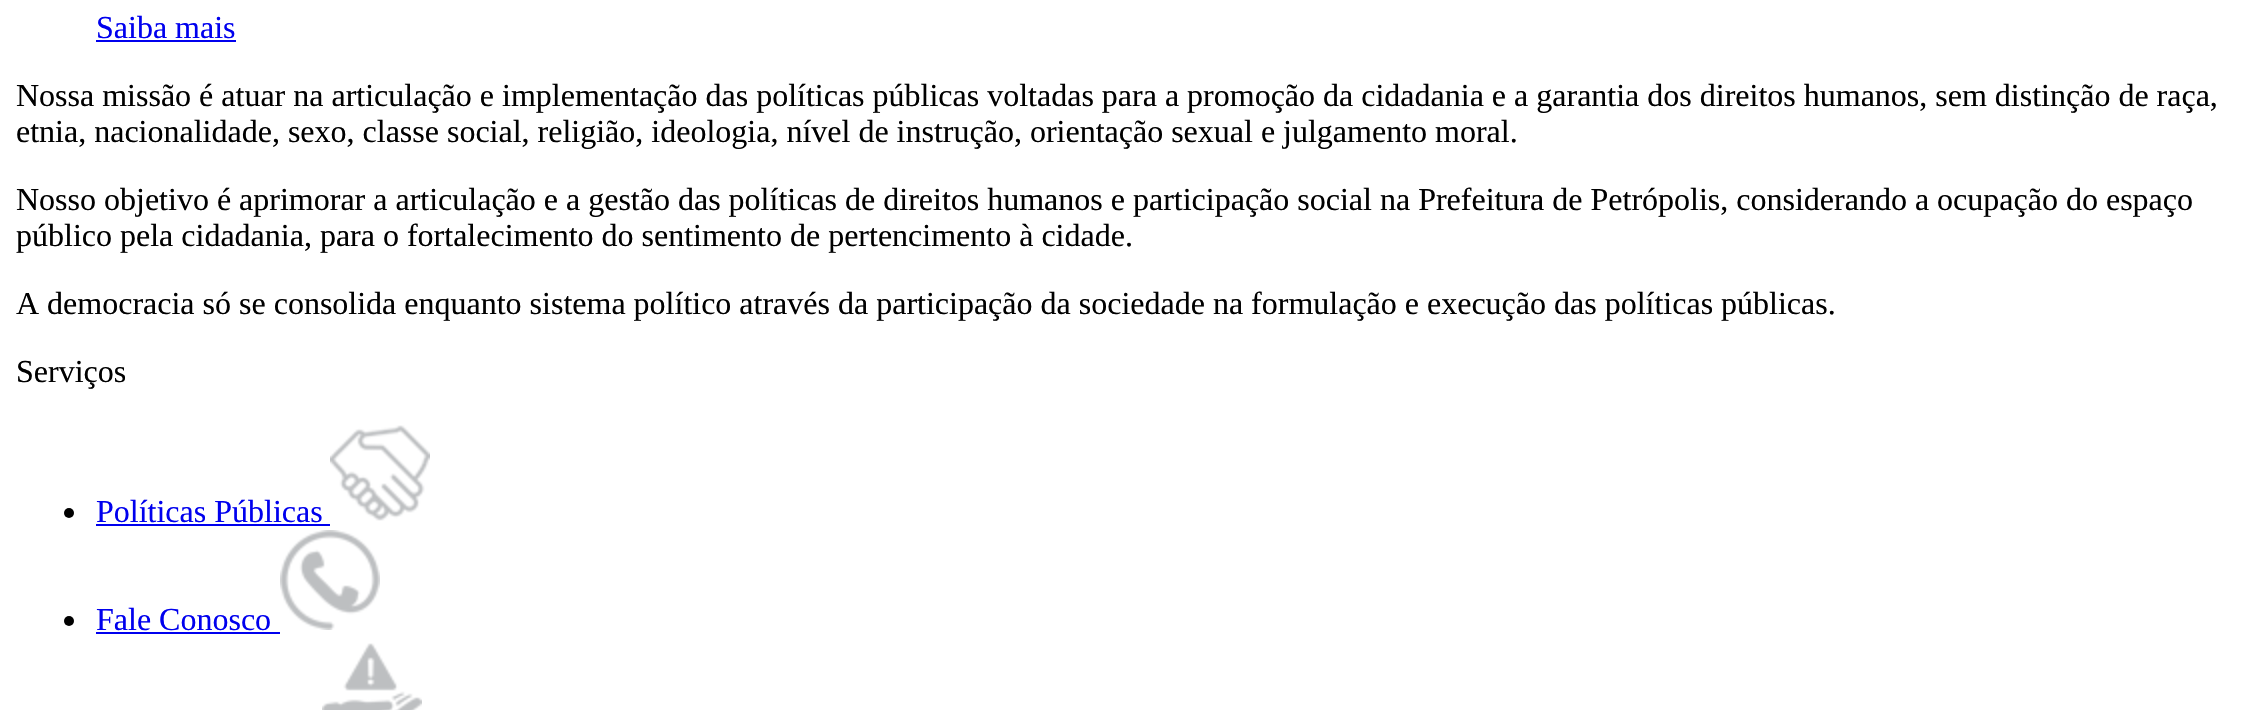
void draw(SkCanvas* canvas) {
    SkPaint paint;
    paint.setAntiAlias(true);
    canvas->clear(0xFFFFFFFF);
    SkFont font1(fontMgr->matchFamilyStyle("Liberation Serif", SkFontStyle::Normal()), 32);
    font1.setSubpixel(true);
    paint.setColor(0xFF0000EE);
    canvas->drawString("Saiba mais", 96, 38, font1, paint);
    canvas->drawRect(SkRect::MakeXYWH(96, 40, 140, 2), paint);
    paint.setColor(0xFF000000);
    canvas->drawString("Nossa missão é atuar na articulação e implementação das políticas públicas voltadas para a promoção da cidadania e a garantia dos direitos humanos, sem distinção de raça,", 16, 106, font1, paint);
    canvas->drawString("etnia, nacionalidade, sexo, classe social, religião, ideologia, nível de instrução, orientação sexual e julgamento moral.", 16, 142, font1, paint);
    canvas->drawString("Nosso objetivo é aprimorar a articulação e a gestão das políticas de direitos humanos e participação social na Prefeitura de Petrópolis, considerando a ocupação do espaço", 16, 210, font1, paint);
    canvas->drawString("público pela cidadania, para o fortalecimento do sentimento de pertencimento à cidade.", 16, 246, font1, paint);
    canvas->drawString("A democracia só se consolida enquanto sistema político através da participação da sociedade na formulação e execução das políticas públicas.", 16, 314, font1, paint);
    canvas->drawString("Serviços", 16, 382, font1, paint);
    canvas->drawCircle(69, 513, 5, paint);
    paint.setColor(0xFF0000EE);
    canvas->drawString("Políticas Públicas", 96, 522, font1, paint);
    canvas->drawRect(SkRect::MakeXYWH(96, 524, 234, 2), paint);
    canvas->drawImageRect(SkImages::DeferredFromEncodedData(SkData::MakeFromFileName("img1.png")), SkRect::MakeXYWH(330, 425, 100, 96), SkSamplingOptions());
    paint.setColor(0xFF000000);
    canvas->drawCircle(69, 621, 5, paint);
    paint.setColor(0xFF0000EE);
    canvas->drawString("Fale Conosco", 96, 630, font1, paint);
    canvas->drawRect(SkRect::MakeXYWH(96, 632, 184, 2), paint);
    canvas->drawImageRect(SkImages::DeferredFromEncodedData(SkData::MakeFromFileName("img2.png")), SkRect::MakeXYWH(280, 530, 100, 100), SkSamplingOptions());
    canvas->drawImageRect(SkImages::DeferredFromEncodedData(SkData::MakeFromFileName("img3.png")), SkRect::MakeXYWH(322, 643, 100, 67), SkSamplingOptions());
}
